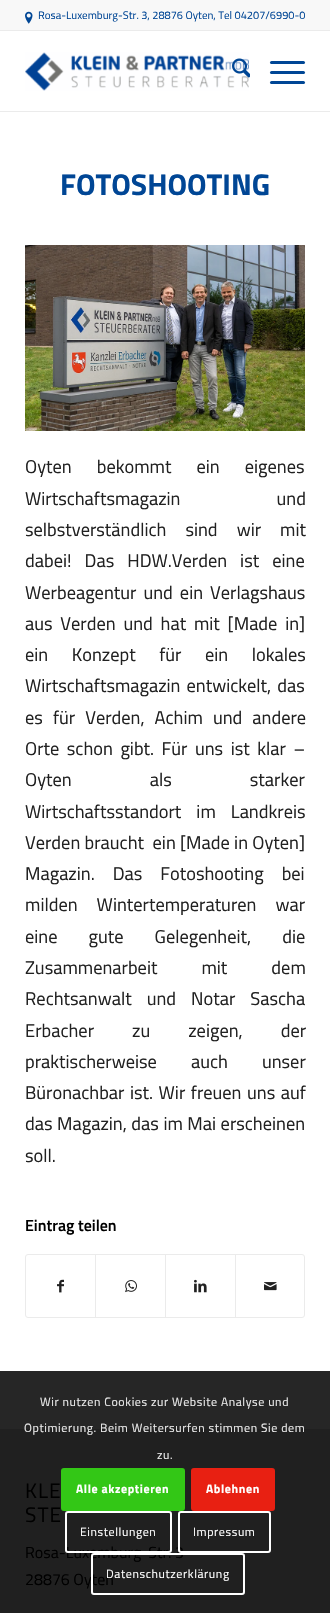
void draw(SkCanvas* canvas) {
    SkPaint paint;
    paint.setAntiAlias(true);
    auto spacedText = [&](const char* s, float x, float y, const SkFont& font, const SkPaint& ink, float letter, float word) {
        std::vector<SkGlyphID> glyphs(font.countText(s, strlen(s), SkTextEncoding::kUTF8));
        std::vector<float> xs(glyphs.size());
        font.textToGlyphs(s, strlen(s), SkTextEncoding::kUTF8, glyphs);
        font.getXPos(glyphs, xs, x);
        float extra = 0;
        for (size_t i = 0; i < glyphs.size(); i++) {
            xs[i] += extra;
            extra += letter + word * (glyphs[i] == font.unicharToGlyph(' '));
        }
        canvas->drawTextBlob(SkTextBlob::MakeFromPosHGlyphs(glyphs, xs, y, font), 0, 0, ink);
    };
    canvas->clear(0xFFFFFFFF);
    paint.setColor(0xFF262626);
    canvas->drawRect(SkRect::MakeXYWH(0, 1371, 330, 58), paint);
    paint.setColor(0xFFF8F8F8);
    canvas->drawRect(SkRect::MakeXYWH(0, 0, 330, 30), paint);
    paint.setColor(0xFFEBEBEB);
    canvas->drawRect(SkRect::MakeXYWH(0, 30, 330, 1), paint);
    canvas->drawImageRect(SkImages::DeferredFromEncodedData(SkData::MakeFromFileName("img1.png")), SkRect::MakeXYWH(25, 11, 8, 13), SkSamplingOptions());
    SkFont font1(fontMgr->matchFamilyStyle("Titillium Web", SkFontStyle::Normal()), 11);
    font1.setSubpixel(true);
    paint.setColor(0xFF004695);
    canvas->drawString("Rosa-Luxemburg-Str. 3, 28876 Oyten, Tel 04207/6990-0", 38, 19, font1, paint);
    paint.setColor(0xFFEBEBEB);
    canvas->drawRect(SkRect::MakeXYWH(0, 111, 330, 1), paint);
    canvas->drawImageRect(SkImages::DeferredFromEncodedData(SkData::MakeFromFileName("img2.png")), SkRect::MakeXYWH(25, 52, 224, 39), SkSamplingOptions());
    canvas->drawImageRect(SkImages::DeferredFromEncodedData(SkData::MakeFromFileName("img3.png")), SkRect::MakeXYWH(232, 58, 18, 20), SkSamplingOptions());
    paint.setColor(0xFF004695);
    canvas->drawRoundRect(SkRect::MakeXYWH(270, 71, 35, 3), 1.5f, 1.5f, paint);
    canvas->drawRoundRect(SkRect::MakeXYWH(270, 61, 35, 3), 1.5f, 1.5f, paint);
    canvas->drawRoundRect(SkRect::MakeXYWH(270, 81, 35, 3), 1.5f, 1.5f, paint);
    SkFont font2(fontMgr->matchFamilyStyle("Titillium Web", SkFontStyle::Bold()), 30);
    font2.setSubpixel(true);
    canvas->drawString("FOTOSHOOTING", 60, 195, font2, paint);
    canvas->drawImageRect(SkImages::DeferredFromEncodedData(SkData::MakeFromFileName("img4.png")), SkRect::MakeXYWH(25, 245, 280, 186), SkSamplingOptions());
    SkFont font3(fontMgr->matchFamilyStyle("Titillium Web", SkFontStyle::Normal()), 18.4f);
    font3.setSubpixel(true);
    paint.setColor(0xFF212121);
    spacedText("Oyten bekommt ein eigenes", 25, 473, font3, paint, 0, 21);
    spacedText("Wirtschaftsmagazin und", 25, 505, font3, paint, 0, 92);
    spacedText("selbstverständlich sind wir mit", 25, 536, font3, paint, 0, 15);
    spacedText("dabei! Das HDW.Verden ist eine", 25, 567, font3, paint, 0, 9);
    spacedText("Werbeagentur und ein Verlagshaus", 25, 599, font3, paint, 0, 3);
    spacedText("aus Verden und hat mit [Made in]", 25, 630, font3, paint, 0, 3.75f);
    spacedText("ein Konzept für ein lokales", 25, 661, font3, paint, 0, 19.5f);
    spacedText("Wirtschaftsmagazin entwickelt, das", 25, 692, font3, paint, 0, 2);
    spacedText("es für Verden, Achim und andere", 25, 724, font3, paint, 0, 6);
    spacedText("Orte schon gibt. Für uns ist klar –", 25, 755, font3, paint, 0, 3.5f);
    spacedText("Oyten als starker", 25, 786, font3, paint, 0, 74);
    spacedText("Wirtschaftsstandort im Landkreis", 25, 818, font3, paint, 0, 11);
    spacedText("Verden braucht  ein [Made in Oyten]", 25, 849, font3, paint, 0, 0.25f);
    spacedText("Magazin. Das Fotoshooting bei", 25, 880, font3, paint, 0, 14);
    spacedText("milden Wintertemperaturen war", 25, 911, font3, paint, 0, 15);
    spacedText("eine gute Gelegenheit, die", 25, 943, font3, paint, 0, 27);
    spacedText("Zusammenarbeit mit dem", 25, 974, font3, paint, 0, 40);
    spacedText("Rechtsanwalt und Notar Sascha", 25, 1005, font3, paint, 0, 11);
    spacedText("Erbacher zu zeigen, der", 25, 1037, font3, paint, 0, 34);
    spacedText("praktischerweise auch unser", 25, 1068, font3, paint, 0, 30);
    spacedText("Büronachbar ist. Wir freuen uns auf", 25, 1099, font3, paint, 0, 1.5f);
    spacedText("das Magazin, das im Mai erscheinen", 25, 1130, font3, paint, 0, 0.5f);
    canvas->drawString("soll.", 25, 1162, font3, paint);
    SkFont font4(fontMgr->matchFamilyStyle("Titillium Web", SkFontStyle(600, SkFontStyle::kNormal_Width, SkFontStyle::kUpright_Slant)), 16);
    font4.setSubpixel(true);
    paint.setColor(0xFF000000);
    canvas->drawString("Eintrag teilen", 25, 1231, font4, paint);
    paint.setStyle(SkPaint::kStroke_Style);
    paint.setStrokeWidth(1);
    paint.setColor(0xFFEBEBEB);
    canvas->drawRoundRect(SkRect::MakeXYWH(25.5f, 1254.5f, 279, 63), 2.5f, 2.5f, paint);
    canvas->drawImageRect(SkImages::DeferredFromEncodedData(SkData::MakeFromFileName("img5.png")), SkRect::MakeXYWH(57, 1279, 7, 14), SkSamplingOptions());
    paint.setStyle(SkPaint::kFill_Style);
    canvas->drawRect(SkRect::MakeXYWH(95, 1255, 1, 62), paint);
    canvas->drawImageRect(SkImages::DeferredFromEncodedData(SkData::MakeFromFileName("img6.png")), SkRect::MakeXYWH(125, 1280, 12, 13), SkSamplingOptions());
    canvas->drawRect(SkRect::MakeXYWH(165, 1255, 1, 62), paint);
    canvas->drawImageRect(SkImages::DeferredFromEncodedData(SkData::MakeFromFileName("img7.png")), SkRect::MakeXYWH(194, 1279, 13, 14), SkSamplingOptions());
    canvas->drawRect(SkRect::MakeXYWH(235, 1255, 1, 62), paint);
    canvas->drawImageRect(SkImages::DeferredFromEncodedData(SkData::MakeFromFileName("img8.png")), SkRect::MakeXYWH(264, 1282, 13, 9), SkSamplingOptions());
    paint.setColor(0xFF202020);
    canvas->drawRect(SkRect::MakeXYWH(0, 1429, 330, 184), paint);
    SkFont font5(fontMgr->matchFamilyStyle("Titillium Web", SkFontStyle::Normal()), 21);
    font5.setSubpixel(true);
    paint.setColor(0xFF000000);
    spacedText("KLE", 25, 1498, font5, paint, 1, 0);
    spacedText("STE", 25, 1522, font5, paint, 1, 0);
    SkFont font6(fontMgr->matchFamilyStyle("Titillium Web", SkFontStyle::Normal()), 16);
    font6.setSubpixel(true);
    canvas->drawString("Rosa-Luxemburg-Str. 3", 25, 1558, font6, paint);
    canvas->drawString("28876 Oyten", 25, 1585, font6, paint);
    SkFont font7(fontMgr->matchFamilyStyle("Titillium Web", SkFontStyle::Normal()), 12);
    font7.setSubpixel(true);
    paint.setColor(0xFFE9E9E9);
    spacedText("Wir nutzen Cookies zur Website Analyse und", 40, 1406, font7, paint, 0.6f, 0);
    spacedText("Optimierung. Beim Weitersurfen stimmen Sie dem", 24, 1432, font7, paint, 0.6f, 0);
    spacedText("zu.", 157, 1459, font7, paint, 0.6f, 0);
    paint.setColor(0xFF33C716);
    canvas->drawRoundRect(SkRect::MakeXYWH(62, 1469, 122, 41), 2, 2, paint);
    paint.setStyle(SkPaint::kStroke_Style);
    paint.setStrokeWidth(2);
    canvas->drawRoundRect(SkRect::MakeXYWH(62, 1469, 122, 41), 2, 2, paint);
    SkFont font8(fontMgr->matchFamilyStyle("Titillium Web", SkFontStyle::Bold()), 12);
    font8.setSubpixel(true);
    paint.setStyle(SkPaint::kFill_Style);
    paint.setColor(0xFFFFFFFF);
    spacedText("Alle akzeptieren", 76, 1493, font8, paint, 0.6f, 0);
    paint.setColor(0xFFE82012);
    canvas->drawRoundRect(SkRect::MakeXYWH(192, 1469, 82, 41), 2, 2, paint);
    paint.setStyle(SkPaint::kStroke_Style);
    canvas->drawRoundRect(SkRect::MakeXYWH(192, 1469, 82, 41), 2, 2, paint);
    paint.setStyle(SkPaint::kFill_Style);
    paint.setColor(0xFFFFFFFF);
    spacedText("Ablehnen", 206, 1493, font8, paint, 0.6f, 0);
    paint.setStyle(SkPaint::kStroke_Style);
    canvas->drawRoundRect(SkRect::MakeXYWH(66, 1512, 105, 40), 2, 2, paint);
    paint.setStyle(SkPaint::kFill_Style);
    spacedText("Einstellungen", 80, 1536, font7, paint, 0.6f, 0);
    paint.setStyle(SkPaint::kStroke_Style);
    canvas->drawRoundRect(SkRect::MakeXYWH(179, 1512, 91, 40), 2, 2, paint);
    paint.setStyle(SkPaint::kFill_Style);
    spacedText("Impressum", 193, 1536, font7, paint, 0.6f, 0);
    paint.setStyle(SkPaint::kStroke_Style);
    canvas->drawRoundRect(SkRect::MakeXYWH(92, 1554, 152, 40), 2, 2, paint);
    paint.setStyle(SkPaint::kFill_Style);
    spacedText("Datenschutzerklärung", 106, 1578, font7, paint, 0.6f, 0);
}
